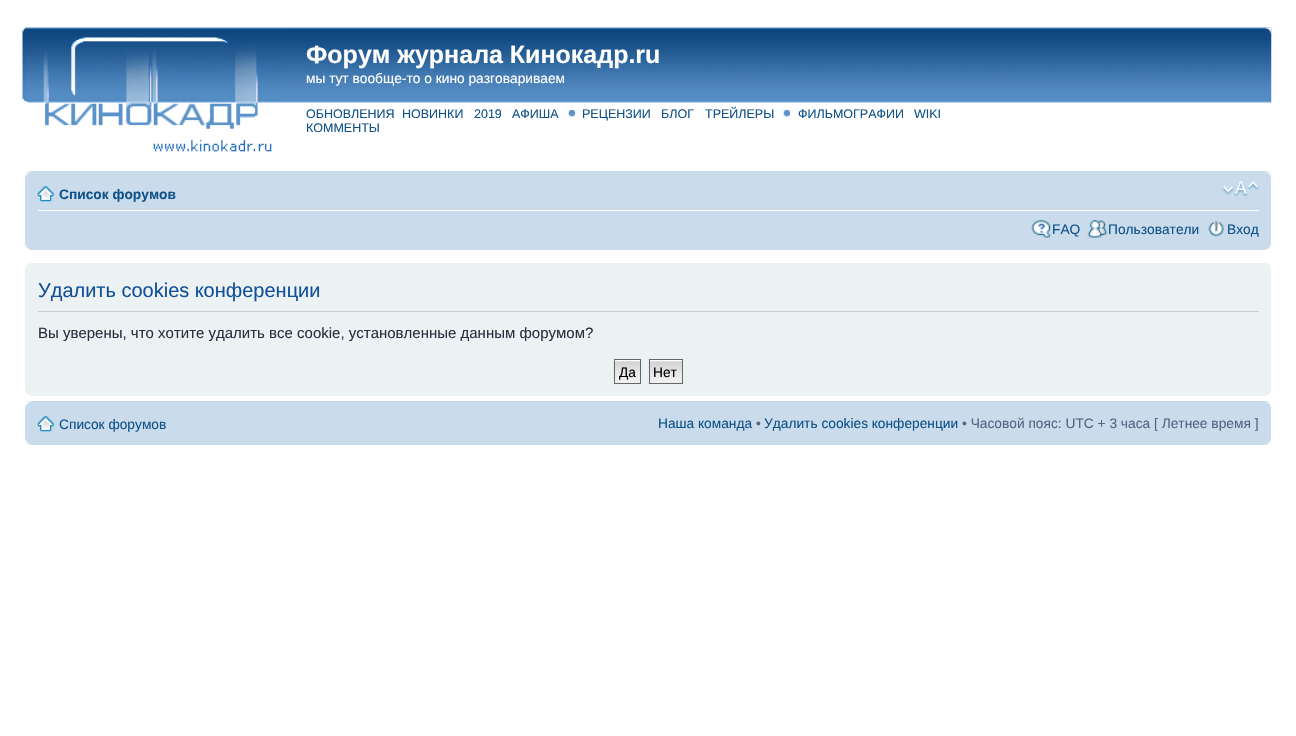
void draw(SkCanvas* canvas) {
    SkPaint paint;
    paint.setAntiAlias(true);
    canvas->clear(0xFFFFFFFF);
    canvas->drawImageRect(SkImages::DeferredFromEncodedData(SkData::MakeFromFileName("img1.png")), SkRect::MakeXYWH(282, 27, 990, 76), SkSamplingOptions());
    canvas->drawImageRect(SkImages::DeferredFromEncodedData(SkData::MakeFromFileName("img2.png")), SkRect::MakeXYWH(1264, 27, 8, 7), SkSamplingOptions());
    canvas->drawImageRect(SkImages::DeferredFromEncodedData(SkData::MakeFromFileName("img3.png")), SkRect::MakeXYWH(22, 27, 260, 128), SkSamplingOptions());
    SkFont font1(fontMgr->matchFamilyStyle("Liberation Sans", SkFontStyle::Bold()), 25);
    font1.setSubpixel(true);
    paint.setColor(0xFFFFFFFF);
    canvas->drawString("Форум журнала Кинокадр.ru", 306, 63, font1, paint);
    SkFont font2(fontMgr->matchFamilyStyle("Liberation Sans", SkFontStyle::Normal()), 13.75f);
    font2.setSubpixel(true);
    canvas->drawString("мы тут вообще-то о кино разговариваем", 306, 83, font2, paint);
    SkFont font3(fontMgr->matchFamilyStyle("Liberation Sans", SkFontStyle::Normal()), 12.5f);
    font3.setSubpixel(true);
    paint.setColor(0xFF105289);
    canvas->drawString("ОБНОВЛЕНИЯ", 306, 118, font3, paint);
    canvas->drawString("НОВИНКИ", 402, 118, font3, paint);
    canvas->drawString("2019", 474, 118, font3, paint);
    canvas->drawString("АФИША", 512, 118, font3, paint);
    canvas->drawImageRect(SkImages::DeferredFromEncodedData(SkData::MakeFromFileName("img4.png")), SkRect::MakeXYWH(568, 110, 7, 7), SkSamplingOptions());
    canvas->drawString("РЕЦЕНЗИИ", 582, 118, font3, paint);
    canvas->drawString("БЛОГ", 661, 118, font3, paint);
    canvas->drawString("ТРЕЙЛЕРЫ", 705, 118, font3, paint);
    canvas->drawImageRect(SkImages::DeferredFromEncodedData(SkData::MakeFromFileName("img5.png")), SkRect::MakeXYWH(783, 110, 7, 7), SkSamplingOptions());
    canvas->drawString("ФИЛЬМОГРАФИИ", 798, 118, font3, paint);
    canvas->drawString("WIKI", 914, 118, font3, paint);
    canvas->drawString("КОММЕНТЫ", 306, 132, font3, paint);
    paint.setColor(0xFFCADCEB);
    canvas->drawRect(SkRect::MakeXYWH(25, 171, 1246, 79), paint);
    canvas->drawImageRect(SkImages::DeferredFromEncodedData(SkData::MakeFromFileName("img6.png")), SkRect::MakeXYWH(25, 171, 6, 7), SkSamplingOptions());
    canvas->drawImageRect(SkImages::DeferredFromEncodedData(SkData::MakeFromFileName("img7.png")), SkRect::MakeXYWH(1265, 171, 6, 7), SkSamplingOptions());
    paint.setColor(0xFFFFFFFF);
    canvas->drawRect(SkRect::MakeXYWH(38, 210, 1221, 1), paint);
    canvas->drawImageRect(SkImages::DeferredFromEncodedData(SkData::MakeFromFileName("img8.png")), SkRect::MakeXYWH(37, 186, 17, 16), SkSamplingOptions());
    SkFont font4(fontMgr->matchFamilyStyle("Liberation Sans", SkFontStyle::Bold()), 13.75f);
    font4.setSubpixel(true);
    paint.setColor(0xFF105289);
    canvas->drawString("Список форумов", 59, 199, font4, paint);
    canvas->drawImageRect(SkImages::DeferredFromEncodedData(SkData::MakeFromFileName("img9.png")), SkRect::MakeXYWH(1222, 181, 37, 16), SkSamplingOptions());
    canvas->drawImageRect(SkImages::DeferredFromEncodedData(SkData::MakeFromFileName("img10.png")), SkRect::MakeXYWH(1031, 220, 21, 18), SkSamplingOptions());
    canvas->drawString("FAQ", 1052, 234, font2, paint);
    canvas->drawImageRect(SkImages::DeferredFromEncodedData(SkData::MakeFromFileName("img11.png")), SkRect::MakeXYWH(1087, 220, 21, 18), SkSamplingOptions());
    canvas->drawString("Пользователи", 1108, 234, font2, paint);
    canvas->drawImageRect(SkImages::DeferredFromEncodedData(SkData::MakeFromFileName("img12.png")), SkRect::MakeXYWH(1208, 221, 16, 16), SkSamplingOptions());
    canvas->drawString("Вход", 1227, 234, font2, paint);
    canvas->drawImageRect(SkImages::DeferredFromEncodedData(SkData::MakeFromFileName("img13.png")), SkRect::MakeXYWH(25, 244, 6, 6), SkSamplingOptions());
    canvas->drawImageRect(SkImages::DeferredFromEncodedData(SkData::MakeFromFileName("img14.png")), SkRect::MakeXYWH(1265, 244, 6, 6), SkSamplingOptions());
    paint.setColor(0xFFECF1F3);
    canvas->drawRect(SkRect::MakeXYWH(25, 263, 1246, 133), paint);
    canvas->drawImageRect(SkImages::DeferredFromEncodedData(SkData::MakeFromFileName("img15.png")), SkRect::MakeXYWH(25, 263, 6, 5), SkSamplingOptions());
    canvas->drawImageRect(SkImages::DeferredFromEncodedData(SkData::MakeFromFileName("img16.png")), SkRect::MakeXYWH(1266, 263, 5, 5), SkSamplingOptions());
    paint.setColor(0xFFCCCCCC);
    canvas->drawRect(SkRect::MakeXYWH(38, 311, 1221, 1), paint);
    SkFont font5(fontMgr->matchFamilyStyle("Liberation Sans", SkFontStyle::Normal()), 20);
    font5.setSubpixel(true);
    paint.setColor(0xFF115098);
    canvas->drawString("Удалить cookies конференции", 38, 297, font5, paint);
    SkFont font6(fontMgr->matchFamilyStyle("Liberation Sans", SkFontStyle::Normal()), 15);
    font6.setSubpixel(true);
    paint.setColor(0xFF28313F);
    canvas->drawString("Вы уверены, что хотите удалить все cookie, установленные данным форумом?", 38, 338, font6, paint);
    canvas->drawImageRect(SkImages::DeferredFromEncodedData(SkData::MakeFromFileName("img17.png")), SkRect::MakeXYWH(613, 360, 29, 24), SkSamplingOptions());
    paint.setStyle(SkPaint::kStroke_Style);
    paint.setStrokeWidth(1);
    paint.setColor(0xFF666666);
    canvas->drawRect(SkRect::MakeXYWH(614.5f, 359.5f, 26, 24), paint);
    paint.setStyle(SkPaint::kFill_Style);
    paint.setColor(0xFF000000);
    canvas->drawString("Да", 619, 377, font2, paint);
    canvas->drawImageRect(SkImages::DeferredFromEncodedData(SkData::MakeFromFileName("img18.png")), SkRect::MakeXYWH(648, 360, 34, 24), SkSamplingOptions());
    paint.setStyle(SkPaint::kStroke_Style);
    paint.setColor(0xFF666666);
    canvas->drawRect(SkRect::MakeXYWH(649.5f, 359.5f, 33, 24), paint);
    paint.setStyle(SkPaint::kFill_Style);
    paint.setColor(0xFF000000);
    canvas->drawString("Нет", 653, 377, font2, paint);
    canvas->drawImageRect(SkImages::DeferredFromEncodedData(SkData::MakeFromFileName("img19.png")), SkRect::MakeXYWH(25, 390, 6, 6), SkSamplingOptions());
    canvas->drawImageRect(SkImages::DeferredFromEncodedData(SkData::MakeFromFileName("img20.png")), SkRect::MakeXYWH(1266, 391, 5, 5), SkSamplingOptions());
    paint.setColor(0xFFCADCEB);
    canvas->drawRect(SkRect::MakeXYWH(25, 401, 1246, 44), paint);
    canvas->drawImageRect(SkImages::DeferredFromEncodedData(SkData::MakeFromFileName("img6.png")), SkRect::MakeXYWH(25, 401, 6, 7), SkSamplingOptions());
    canvas->drawImageRect(SkImages::DeferredFromEncodedData(SkData::MakeFromFileName("img7.png")), SkRect::MakeXYWH(1265, 401, 6, 7), SkSamplingOptions());
    canvas->drawImageRect(SkImages::DeferredFromEncodedData(SkData::MakeFromFileName("img8.png")), SkRect::MakeXYWH(37, 416, 17, 16), SkSamplingOptions());
    paint.setColor(0xFF105289);
    canvas->drawString("Список форумов", 59, 429, font2, paint);
    canvas->drawString("Наша команда", 658, 428, font2, paint);
    paint.setColor(0xFF536482);
    canvas->drawString("•", 756, 428, font2, paint);
    paint.setColor(0xFF105289);
    canvas->drawString("Удалить cookies конференции", 764, 428, font2, paint);
    paint.setColor(0xFF536482);
    canvas->drawString("• Часовой пояс: UTC + 3 часа [ Летнее время ]", 962, 428, font2, paint);
    canvas->drawImageRect(SkImages::DeferredFromEncodedData(SkData::MakeFromFileName("img13.png")), SkRect::MakeXYWH(25, 439, 6, 6), SkSamplingOptions());
    canvas->drawImageRect(SkImages::DeferredFromEncodedData(SkData::MakeFromFileName("img14.png")), SkRect::MakeXYWH(1265, 439, 6, 6), SkSamplingOptions());
}
